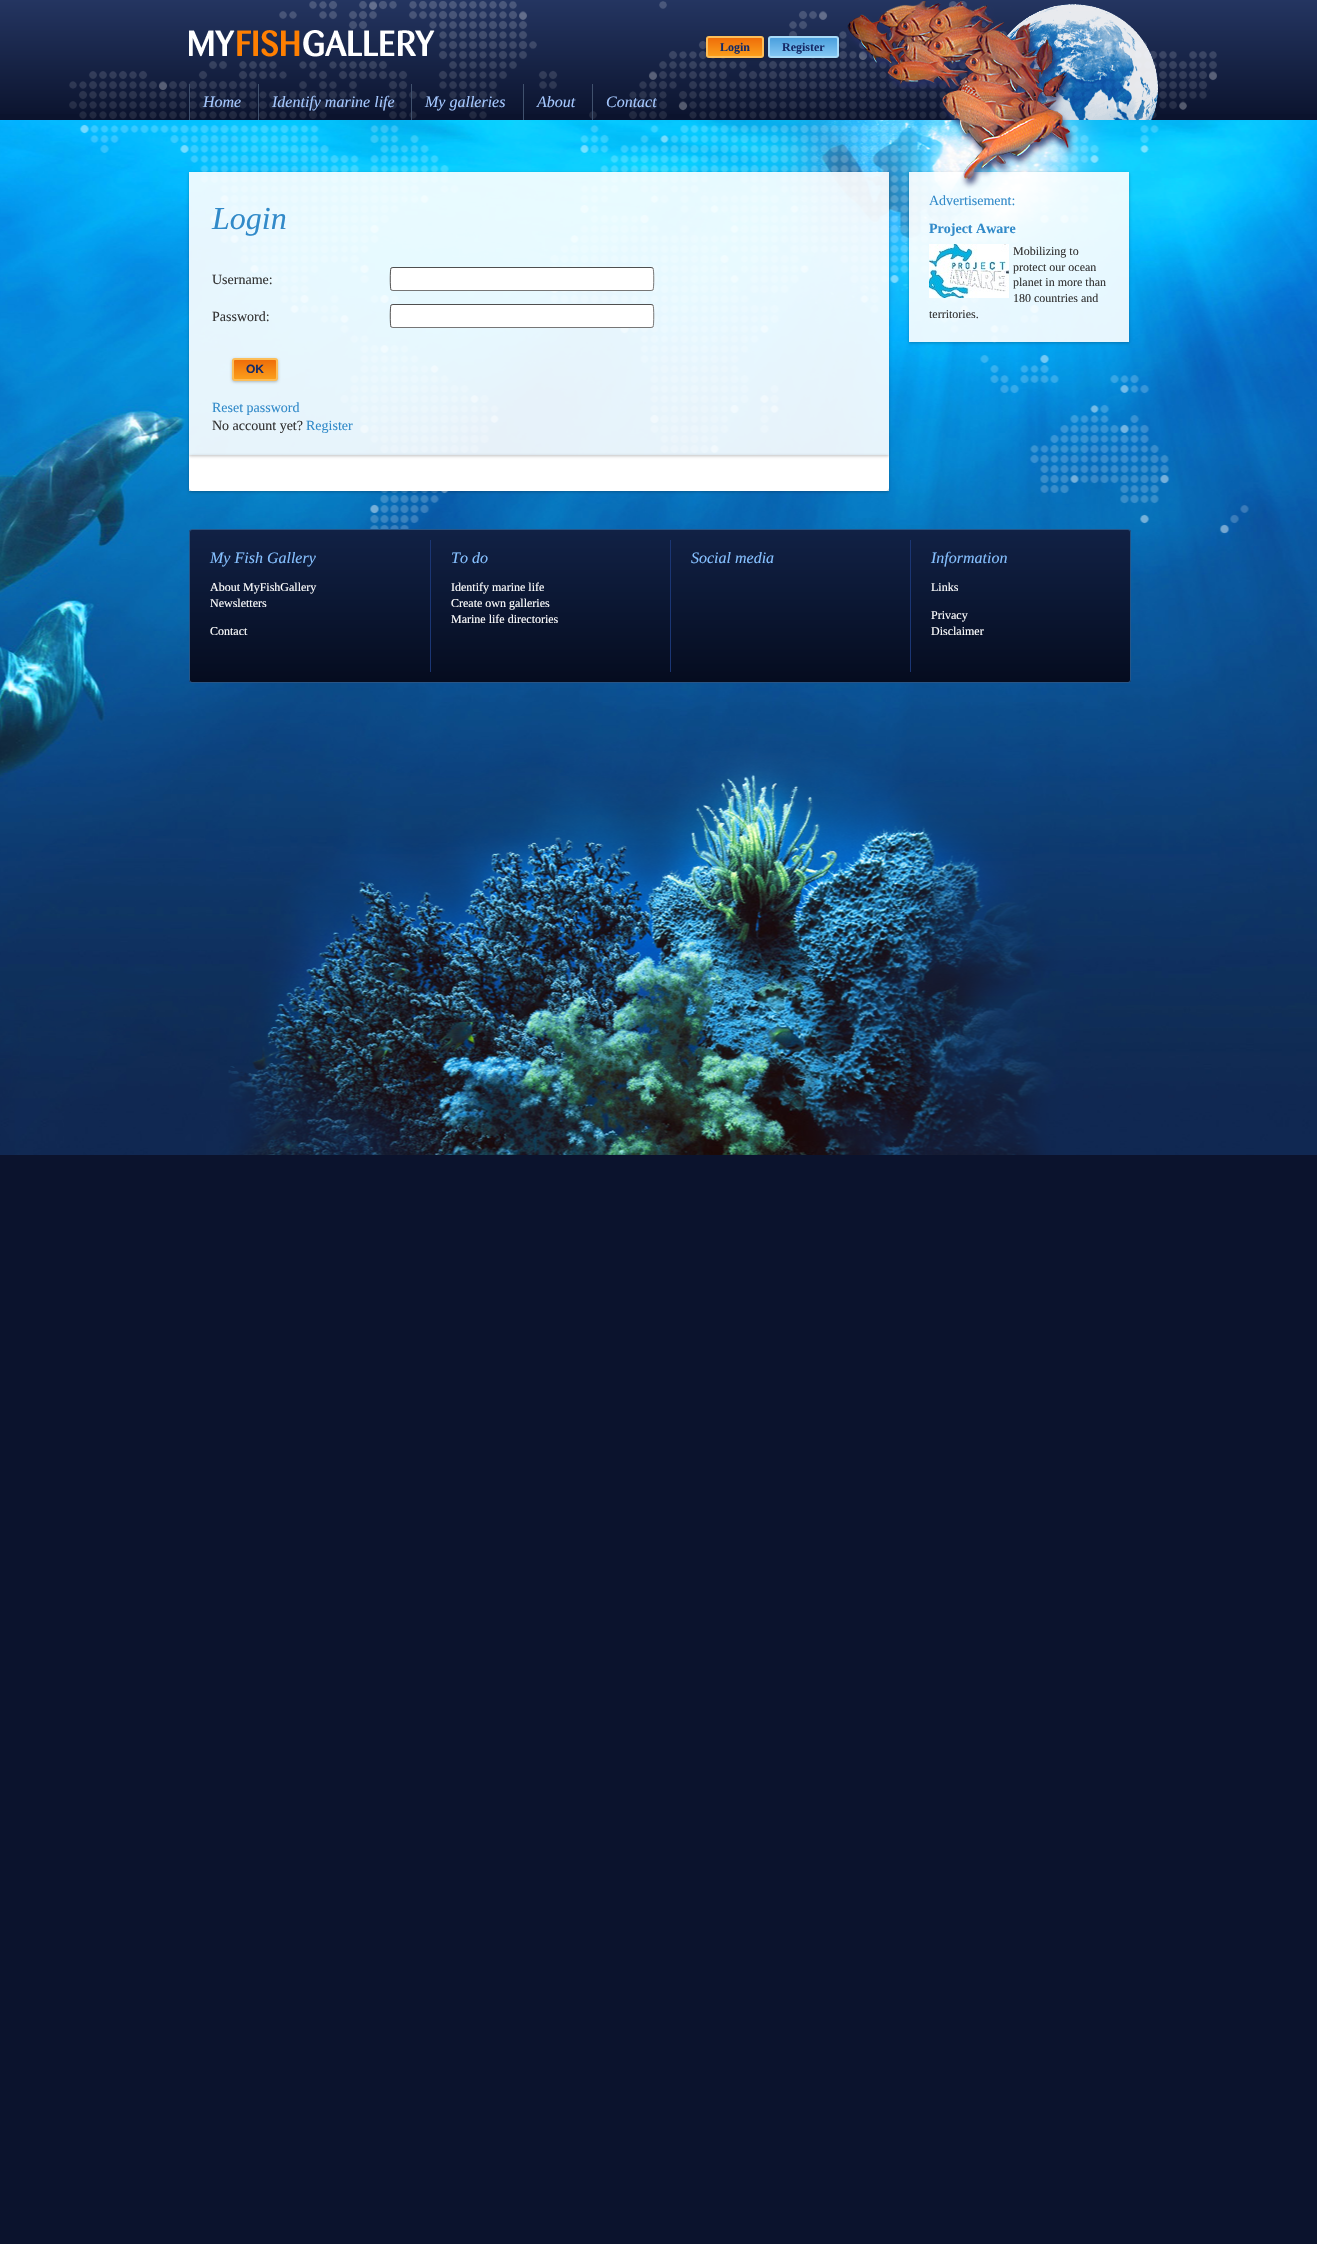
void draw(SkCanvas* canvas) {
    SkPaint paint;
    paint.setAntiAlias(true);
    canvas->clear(0xFF0B132D);
    canvas->drawImageRect(SkImages::DeferredFromEncodedData(SkData::MakeFromFileName("img1.png")), SkRect::MakeXYWH(0, 120, 1317, 1035), SkSamplingOptions());
    {
        const SkColor colors[] = {0xFF243561, 0xFF0B132D};
        const float stops[] = {0, 1};
        const SkPoint ends[] = {{659, 0}, {659, 120}};
        paint.setShader(SkGradientShader::MakeLinear(ends, colors, stops, 2, SkTileMode::kClamp));
        paint.setAlpha(255);
    }
    canvas->drawRect(SkRect::MakeXYWH(0, 0, 1317, 114), paint);
    canvas->drawImageRect(SkImages::DeferredFromEncodedData(SkData::MakeFromFileName("img3.png")), SkRect::MakeXYWH(189, 30, 246, 27), SkSamplingOptions());
    canvas->drawImageRect(SkImages::DeferredFromEncodedData(SkData::MakeFromFileName("img2.png")), SkRect::MakeXYWH(69, 1, 1148, 118), SkSamplingOptions());
    paint.setShader(nullptr);
    paint.setColor(0x40000000);
    paint.setMaskFilter(SkMaskFilter::MakeBlur(kNormal_SkBlurStyle, 1.5f));
    canvas->drawRoundRect(SkRect::MakeXYWH(706, 37, 58, 22), 3, 3, paint);
    paint.setMaskFilter(nullptr);
    canvas->save();
    canvas->clipPath(SkPathBuilder().moveTo(709, 36).lineTo(761, 36).cubicTo(762.5f, 36, 764, 37.5f, 764, 39).lineTo(764, 55).cubicTo(764, 56.5f, 762.5f, 58, 761, 58).lineTo(709, 58).cubicTo(707.5f, 58, 706, 56.5f, 706, 55).lineTo(706, 39).cubicTo(706, 37.5f, 707.5f, 36, 709, 36).close().detach(), true);
    {
        const SkColor colors[] = {0xFFEF6D09, 0xFFFB9E1B};
        const float stops[] = {0, 1};
        const SkPoint ends[] = {{735, 38}, {735, 56}};
        paint.setShader(SkGradientShader::MakeLinear(ends, colors, stops, 2, SkTileMode::kClamp));
        paint.setAlpha(255);
    }
    canvas->drawRect(SkRect::MakeXYWH(706, 38, 58, 18), paint);
    canvas->restore();
    paint.setStyle(SkPaint::kStroke_Style);
    paint.setStrokeWidth(2);
    paint.setShader(nullptr);
    paint.setColor(0xFFFCBE59);
    canvas->drawRoundRect(SkRect::MakeXYWH(707, 37, 56, 20), 2, 2, paint);
    SkFont font1(fontMgr->matchFamilyStyle("Liberation Serif", SkFontStyle::Bold()), 12);
    font1.setSubpixel(true);
    paint.setStyle(SkPaint::kFill_Style);
    paint.setColor(0xFF162B68);
    canvas->drawString("Login", 720, 51, font1, paint);
    paint.setColor(0x40000000);
    paint.setMaskFilter(SkMaskFilter::MakeBlur(kNormal_SkBlurStyle, 1.5f));
    canvas->drawRoundRect(SkRect::MakeXYWH(768, 37, 71, 22), 3, 3, paint);
    paint.setMaskFilter(nullptr);
    canvas->save();
    canvas->clipPath(SkPathBuilder().moveTo(771, 36).lineTo(836, 36).cubicTo(837.5f, 36, 839, 37.5f, 839, 39).lineTo(839, 55).cubicTo(839, 56.5f, 837.5f, 58, 836, 58).lineTo(771, 58).cubicTo(769.5f, 58, 768, 56.5f, 768, 55).lineTo(768, 39).cubicTo(768, 37.5f, 769.5f, 36, 771, 36).close().detach(), true);
    {
        const SkColor colors[] = {0xFF4A9FDD, 0xFF83C6F3};
        const float stops[] = {0, 1};
        const SkPoint ends[] = {{804, 38}, {804, 56}};
        paint.setShader(SkGradientShader::MakeLinear(ends, colors, stops, 2, SkTileMode::kClamp));
        paint.setAlpha(255);
    }
    canvas->drawRect(SkRect::MakeXYWH(768, 38, 71, 18), paint);
    canvas->restore();
    paint.setStyle(SkPaint::kStroke_Style);
    paint.setShader(nullptr);
    paint.setColor(0xFFA8DAF8);
    canvas->drawRoundRect(SkRect::MakeXYWH(769, 37, 69, 20), 2, 2, paint);
    paint.setStyle(SkPaint::kFill_Style);
    paint.setColor(0xFF162B68);
    canvas->drawString("Register", 782, 51, font1, paint);
    canvas->drawImageRect(SkImages::DeferredFromEncodedData(SkData::MakeFromFileName("img5.png")), SkRect::MakeXYWH(1006, 4, 153, 116), SkSamplingOptions());
    paint.setColor(0xE6FFFFFF);
    canvas->drawRect(SkRect::MakeXYWH(189, 172, 700, 319), paint);
    canvas->drawRect(SkRect::MakeXYWH(909, 172, 220, 170), paint);
    canvas->save();
    canvas->clipPath(SkPathBuilder(SkPathFillType::kEvenOdd).moveTo(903, 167).lineTo(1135, 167).lineTo(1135, 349).lineTo(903, 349).close().moveTo(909, 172).lineTo(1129, 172).lineTo(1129, 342).lineTo(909, 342).close().detach(), true);
    paint.setColor(0x40000000);
    paint.setMaskFilter(SkMaskFilter::MakeBlur(kNormal_SkBlurStyle, 1.5f));
    canvas->drawRect(SkRect::MakeXYWH(909, 173, 220, 170), paint);
    paint.setMaskFilter(nullptr);
    canvas->restore();
    canvas->drawImageRect(SkImages::DeferredFromEncodedData(SkData::MakeFromFileName("img4.png")), SkRect::MakeXYWH(847, 1, 229, 188), SkSamplingOptions());
    paint.setColor(0xFF40516D);
    canvas->drawRect(SkRect::MakeXYWH(189, 84, 1, 36), paint);
    SkFont font2(fontMgr->matchFamilyStyle("Liberation Serif", SkFontStyle::Italic()), 16);
    font2.setSubpixel(true);
    paint.setColor(0xFFA4C7FE);
    canvas->drawString("Home", 203, 107, font2, paint);
    paint.setColor(0xFF40516D);
    canvas->drawRect(SkRect::MakeXYWH(258, 84, 1, 36), paint);
    paint.setColor(0xFFA4C7FE);
    canvas->drawString("Identify marine life", 272, 107, font2, paint);
    paint.setColor(0xFF40516D);
    canvas->drawRect(SkRect::MakeXYWH(411, 84, 1, 36), paint);
    paint.setColor(0xFFA4C7FE);
    canvas->drawString("My galleries", 425, 107, font2, paint);
    paint.setColor(0xFF40516D);
    canvas->drawRect(SkRect::MakeXYWH(523, 84, 1, 36), paint);
    paint.setColor(0xFFA4C7FE);
    canvas->drawString("About", 537, 107, font2, paint);
    paint.setColor(0xFF40516D);
    canvas->drawRect(SkRect::MakeXYWH(592, 84, 1, 36), paint);
    paint.setColor(0xFFA4C7FE);
    canvas->drawString("Contact", 606, 107, font2, paint);
    paint.setColor(0x40000000);
    paint.setMaskFilter(SkMaskFilter::MakeBlur(kNormal_SkBlurStyle, 1.5f));
    canvas->drawRoundRect(SkRect::MakeXYWH(189, 456, 700, 36), 3, 3, paint);
    paint.setMaskFilter(nullptr);
    paint.setColor(0xFFFFFFFF);
    canvas->drawPath(SkPathBuilder().moveTo(189, 455).lineTo(889, 455).lineTo(889, 488).cubicTo(889, 489.5f, 887.5f, 491, 886, 491).lineTo(192, 491).cubicTo(190.5f, 491, 189, 489.5f, 189, 488).close().detach(), paint);
    canvas->save();
    canvas->clipPath(SkPathBuilder(SkPathFillType::kEvenOdd).moveTo(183, 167).lineTo(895, 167).lineTo(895, 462).lineTo(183, 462).close().moveTo(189, 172).lineTo(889, 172).lineTo(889, 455).lineTo(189, 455).close().detach(), true);
    paint.setColor(0x40000000);
    paint.setMaskFilter(SkMaskFilter::MakeBlur(kNormal_SkBlurStyle, 1.5f));
    canvas->drawRect(SkRect::MakeXYWH(189, 173, 700, 283), paint);
    paint.setMaskFilter(nullptr);
    canvas->restore();
    SkFont font3(fontMgr->matchFamilyStyle("Liberation Serif", SkFontStyle::Italic()), 32);
    font3.setSubpixel(true);
    paint.setColor(0xFF318AC9);
    canvas->drawString("Login", 212, 229, font3, paint);
    SkFont font4(fontMgr->matchFamilyStyle("Liberation Serif", SkFontStyle::Normal()), 14);
    font4.setSubpixel(true);
    paint.setColor(0xFF333333);
    canvas->drawString("Username:", 212, 284, font4, paint);
    paint.setColor(0xFFFFFFFF);
    canvas->drawRoundRect(SkRect::MakeXYWH(390, 267, 264, 24), 3, 3, paint);
    paint.setStyle(SkPaint::kStroke_Style);
    paint.setStrokeWidth(1);
    paint.setColor(0xFF767676);
    canvas->drawPath(SkPathBuilder().moveTo(653, 268).cubicTo(654, 269.5f, 654, 288.5f, 653, 290).lineTo(651, 290.5f).lineTo(522, 290.5f).lineTo(393, 290.5f).lineTo(391, 290).detach(), paint);
    paint.setColor(0xFF4F4F4F);
    canvas->drawPath(SkPathBuilder().moveTo(391, 290).cubicTo(390, 288.5f, 390, 269.5f, 391, 268).lineTo(393, 267.5f).lineTo(522, 267.5f).lineTo(651, 267.5f).lineTo(653, 268).detach(), paint);
    paint.setStyle(SkPaint::kFill_Style);
    paint.setColor(0xFF333333);
    canvas->drawString("Password:", 212, 321, font4, paint);
    paint.setColor(0xFFFFFFFF);
    canvas->drawRoundRect(SkRect::MakeXYWH(390, 304, 264, 24), 3, 3, paint);
    paint.setStyle(SkPaint::kStroke_Style);
    paint.setColor(0xFF767676);
    canvas->drawPath(SkPathBuilder().moveTo(653, 305).cubicTo(654, 306.5f, 654, 325.5f, 653, 327).lineTo(651, 327.5f).lineTo(522, 327.5f).lineTo(393, 327.5f).lineTo(391, 327).detach(), paint);
    paint.setColor(0xFF4F4F4F);
    canvas->drawPath(SkPathBuilder().moveTo(391, 327).cubicTo(390, 325.5f, 390, 306.5f, 391, 305).lineTo(393, 304.5f).lineTo(522, 304.5f).lineTo(651, 304.5f).lineTo(653, 305).detach(), paint);
    paint.setStyle(SkPaint::kFill_Style);
    paint.setColor(0x40000000);
    paint.setMaskFilter(SkMaskFilter::MakeBlur(kNormal_SkBlurStyle, 1.5f));
    canvas->drawRoundRect(SkRect::MakeXYWH(232, 359, 46, 23), 3, 3, paint);
    paint.setMaskFilter(nullptr);
    canvas->save();
    canvas->clipPath(SkPathBuilder().moveTo(235, 358).lineTo(275, 358).cubicTo(276.5f, 358, 278, 359.5f, 278, 361).lineTo(278, 378).cubicTo(278, 379.5f, 276.5f, 381, 275, 381).lineTo(235, 381).cubicTo(233.5f, 381, 232, 379.5f, 232, 378).lineTo(232, 361).cubicTo(232, 359.5f, 233.5f, 358, 235, 358).close().detach(), true);
    {
        const SkColor colors[] = {0xFFEF6D09, 0xFFFB9E1B};
        const float stops[] = {0, 1};
        const SkPoint ends[] = {{255, 360}, {255, 379}};
        paint.setShader(SkGradientShader::MakeLinear(ends, colors, stops, 2, SkTileMode::kClamp));
        paint.setAlpha(255);
    }
    canvas->drawRect(SkRect::MakeXYWH(232, 360, 46, 19), paint);
    canvas->restore();
    paint.setStyle(SkPaint::kStroke_Style);
    paint.setStrokeWidth(2);
    paint.setShader(nullptr);
    paint.setColor(0xFFFCBE59);
    canvas->drawRoundRect(SkRect::MakeXYWH(233, 359, 44, 21), 2, 2, paint);
    SkFont font5(fontMgr->matchFamilyStyle("Liberation Sans", SkFontStyle::Bold()), 12);
    font5.setSubpixel(true);
    paint.setStyle(SkPaint::kFill_Style);
    paint.setColor(0xFF162B68);
    canvas->drawString("OK", 246, 373, font5, paint);
    paint.setColor(0xFF318AC9);
    canvas->drawString("Reset password", 212, 412, font4, paint);
    paint.setColor(0xFF333333);
    canvas->drawString("No account yet?", 212, 430, font4, paint);
    paint.setColor(0xFF318AC9);
    canvas->drawString("Register", 306, 430, font4, paint);
    canvas->drawString("Advertisement:", 929, 205, font4, paint);
    SkFont font6(fontMgr->matchFamilyStyle("Liberation Serif", SkFontStyle::Bold()), 14);
    font6.setSubpixel(true);
    canvas->drawString("Project Aware", 929, 233, font6, paint);
    canvas->drawImageRect(SkImages::DeferredFromEncodedData(SkData::MakeFromFileName("img6.png")), SkRect::MakeXYWH(929, 244, 80, 54), SkSamplingOptions());
    SkFont font7(fontMgr->matchFamilyStyle("Liberation Serif", SkFontStyle::Normal()), 12);
    font7.setSubpixel(true);
    paint.setColor(0xFF333333);
    canvas->drawString("Mobilizing to", 1013, 255, font7, paint);
    canvas->drawString("protect our ocean", 1013, 271, font7, paint);
    canvas->drawString("planet in more than", 1013, 286, font7, paint);
    canvas->drawString("180 countries and", 1013, 302, font7, paint);
    canvas->drawString("territories.", 929, 318, font7, paint);
    canvas->save();
    canvas->clipPath(SkPathBuilder().moveTo(192, 529).lineTo(1128, 529).cubicTo(1129.5f, 529, 1131, 530.5f, 1131, 532).lineTo(1131, 680).cubicTo(1131, 681.5f, 1129.5f, 683, 1128, 683).lineTo(192, 683).cubicTo(190.5f, 683, 189, 681.5f, 189, 680).lineTo(189, 532).cubicTo(189, 530.5f, 190.5f, 529, 192, 529).close().detach(), true);
    {
        const SkColor colors[] = {0xFF112145, 0xFF050C1F};
        const float stops[] = {0, 1};
        const SkPoint ends[] = {{660, 530}, {660, 682}};
        paint.setShader(SkGradientShader::MakeLinear(ends, colors, stops, 2, SkTileMode::kClamp));
        paint.setAlpha(255);
    }
    canvas->drawRect(SkRect::MakeXYWH(189, 530, 942, 152), paint);
    canvas->restore();
    paint.setStyle(SkPaint::kStroke_Style);
    paint.setStrokeWidth(1);
    paint.setShader(nullptr);
    paint.setColor(0xFF295585);
    canvas->drawRoundRect(SkRect::MakeXYWH(189.5f, 529.5f, 941, 153), 2.5f, 2.5f, paint);
    paint.setStyle(SkPaint::kFill_Style);
    paint.setColor(0xFF85C0FF);
    canvas->drawString("My Fish Gallery", 210, 563, font2, paint);
    paint.setColor(0xFFFFFFFF);
    canvas->drawString("About MyFishGallery", 210, 591, font7, paint);
    canvas->drawString("Newsletters", 210, 607, font7, paint);
    canvas->drawString("Contact", 210, 635, font7, paint);
    paint.setColor(0xFF1B3674);
    canvas->drawRect(SkRect::MakeXYWH(430, 540, 1, 132), paint);
    paint.setColor(0xFF85C0FF);
    canvas->drawString("To do", 451, 563, font2, paint);
    paint.setColor(0xFFFFFFFF);
    canvas->drawString("Identify marine life", 451, 591, font7, paint);
    canvas->drawString("Create own galleries", 451, 607, font7, paint);
    canvas->drawString("Marine life directories", 451, 623, font7, paint);
    paint.setColor(0xFF1B3674);
    canvas->drawRect(SkRect::MakeXYWH(670, 540, 1, 132), paint);
    paint.setColor(0xFF85C0FF);
    canvas->drawString("Social media", 691, 563, font2, paint);
    paint.setColor(0xFF1B3674);
    canvas->drawRect(SkRect::MakeXYWH(910, 540, 1, 132), paint);
    paint.setColor(0xFF85C0FF);
    canvas->drawString("Information", 931, 563, font2, paint);
    paint.setColor(0xFFFFFFFF);
    canvas->drawString("Links", 931, 591, font7, paint);
    canvas->drawString("Privacy", 931, 619, font7, paint);
    canvas->drawString("Disclaimer", 931, 635, font7, paint);
}
